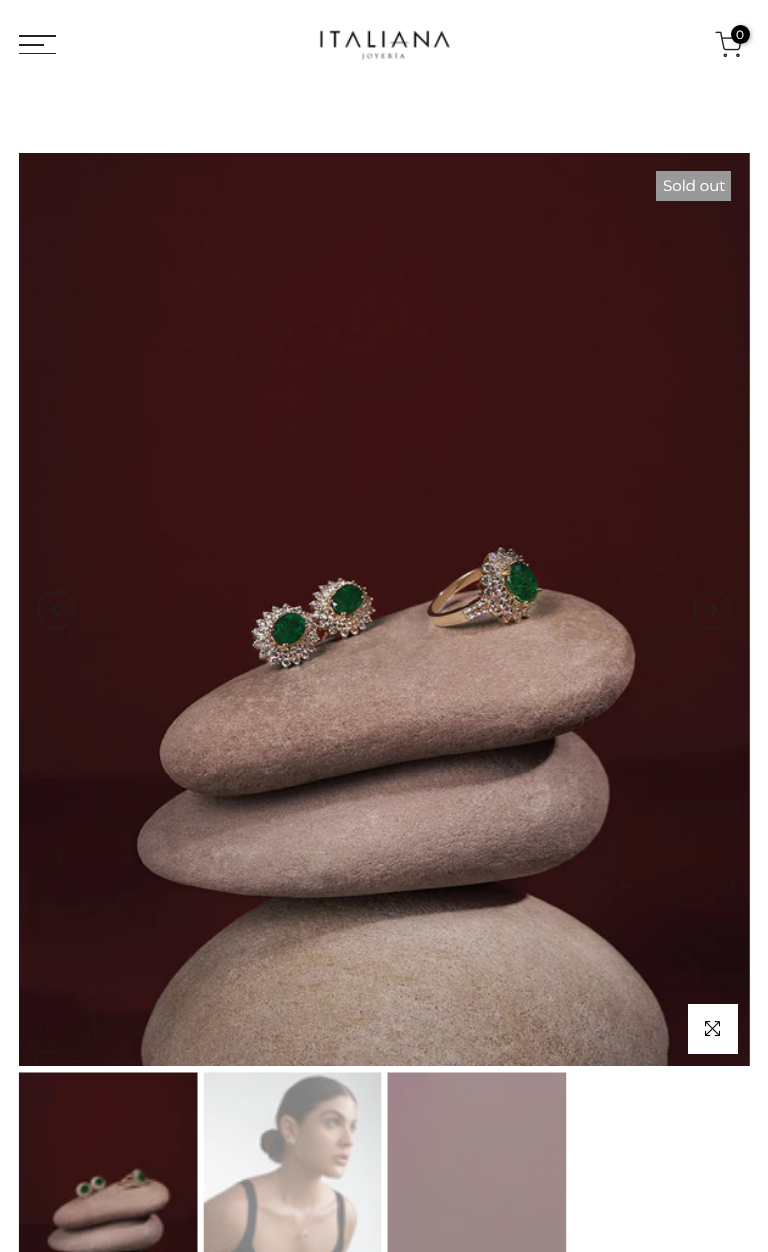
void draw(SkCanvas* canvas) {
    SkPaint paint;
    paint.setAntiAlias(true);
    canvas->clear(0xFFFFFFFF);
    paint.setColor(0xFF222222);
    canvas->drawRect(SkRect::MakeXYWH(19, 35, 37, 2), paint);
    canvas->drawRect(SkRect::MakeXYWH(19, 44, 25, 2), paint);
    canvas->drawRect(SkRect::MakeXYWH(19, 53, 37, 1), paint);
    canvas->drawImageRect(SkImages::DeferredFromEncodedData(SkData::MakeFromFileName("img1.png")), SkRect::MakeXYWH(319, 30, 132, 30), SkSamplingOptions());
    canvas->drawImageRect(SkImages::DeferredFromEncodedData(SkData::MakeFromFileName("img2.png")), SkRect::MakeXYWH(715, 31, 27, 27), SkSamplingOptions());
    paint.setColor(0x4D000000);
    paint.setMaskFilter(SkMaskFilter::MakeBlur(kNormal_SkBlurStyle, 2));
    canvas->drawRoundRect(SkRect::MakeXYWH(733, 26, 18, 19), 9, 9, paint);
    paint.setMaskFilter(nullptr);
    paint.setColor(0xFF000000);
    canvas->drawCircle(740.5f, 34.5f, 9.5f, paint);
    SkFont font1(fontMgr->matchFamilyStyle("Montserrat", SkFontStyle::Normal()), 12);
    font1.setSubpixel(true);
    paint.setColor(0xFFFFFFFF);
    canvas->drawString("0", 736, 39, font1, paint);
    canvas->drawImageRect(SkImages::DeferredFromEncodedData(SkData::MakeFromFileName("img3.png")), SkRect::MakeXYWH(19, 153, 731, 913), SkSamplingOptions());
    paint.setStyle(SkPaint::kStroke_Style);
    paint.setStrokeWidth(1);
    paint.setColor(0xFF222222);
    canvas->drawRoundRect(SkRect::MakeXYWH(38.5f, 591.5f, 36, 37), 18, 18, paint);
    canvas->drawImageRect(SkImages::DeferredFromEncodedData(SkData::MakeFromFileName("img4.png")), SkRect::MakeXYWH(51, 604, 8, 12), SkSamplingOptions());
    canvas->drawRoundRect(SkRect::MakeXYWH(694.5f, 591.5f, 36, 37), 18, 18, paint);
    canvas->drawImageRect(SkImages::DeferredFromEncodedData(SkData::MakeFromFileName("img5.png")), SkRect::MakeXYWH(710, 604, 7, 12), SkSamplingOptions());
    paint.setStyle(SkPaint::kFill_Style);
    paint.setColor(0xFF999999);
    canvas->drawRect(SkRect::MakeXYWH(656, 171, 75, 30), paint);
    SkFont font2(fontMgr->matchFamilyStyle("Montserrat", SkFontStyle::Normal()), 15);
    font2.setSubpixel(true);
    paint.setColor(0xFFFFFFFF);
    canvas->drawString("Sold out", 663, 191, font2, paint);
    canvas->drawRect(SkRect::MakeXYWH(688, 1004, 50, 50), paint);
    canvas->drawImageRect(SkImages::DeferredFromEncodedData(SkData::MakeFromFileName("img6.png")), SkRect::MakeXYWH(705, 1021, 15, 16), SkSamplingOptions());
    canvas->drawImageRect(SkImages::DeferredFromEncodedData(SkData::MakeFromFileName("img7.png")), SkRect::MakeXYWH(18, 1072, 180, 180), SkSamplingOptions());
    canvas->drawImageRect(SkImages::DeferredFromEncodedData(SkData::MakeFromFileName("img8.png")), SkRect::MakeXYWH(203, 1072, 179, 180), SkSamplingOptions());
    canvas->drawImageRect(SkImages::DeferredFromEncodedData(SkData::MakeFromFileName("img9.png")), SkRect::MakeXYWH(387, 1072, 180, 180), SkSamplingOptions());
}
